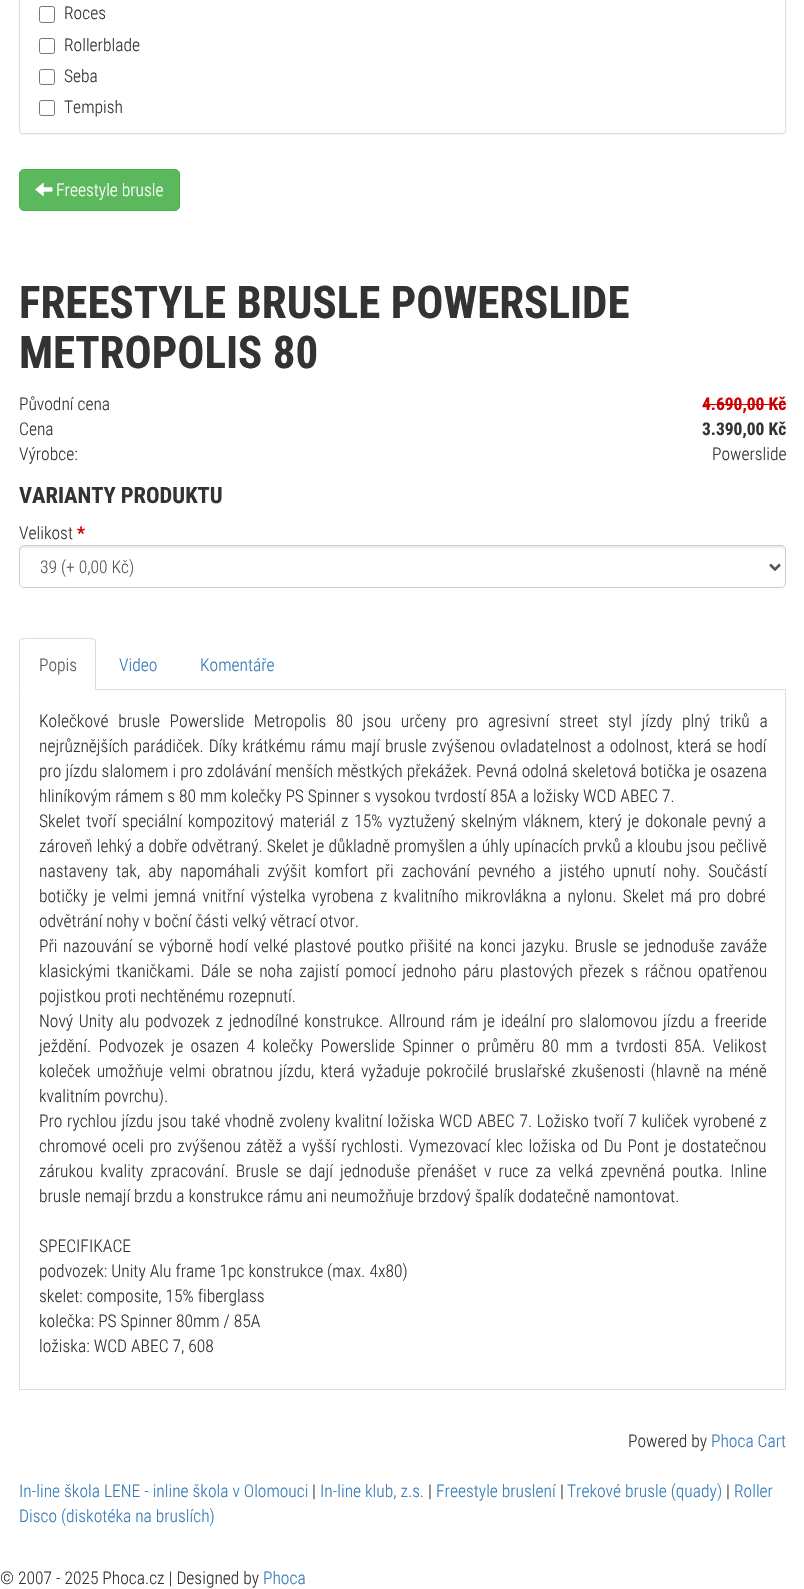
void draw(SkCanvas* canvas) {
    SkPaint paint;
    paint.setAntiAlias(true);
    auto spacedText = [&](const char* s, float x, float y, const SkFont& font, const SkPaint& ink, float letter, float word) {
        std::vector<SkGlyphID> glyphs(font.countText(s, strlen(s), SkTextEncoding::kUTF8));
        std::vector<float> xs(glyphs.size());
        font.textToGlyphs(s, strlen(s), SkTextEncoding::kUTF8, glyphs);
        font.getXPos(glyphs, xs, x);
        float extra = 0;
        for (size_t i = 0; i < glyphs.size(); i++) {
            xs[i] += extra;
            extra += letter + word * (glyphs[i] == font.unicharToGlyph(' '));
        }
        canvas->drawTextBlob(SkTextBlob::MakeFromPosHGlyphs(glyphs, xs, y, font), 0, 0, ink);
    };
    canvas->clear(0xFFFFFFFF);
    paint.setColor(0x0D000000);
    paint.setMaskFilter(SkMaskFilter::MakeBlur(kNormal_SkBlurStyle, 0.5f));
    canvas->drawRoundRect(SkRect::MakeXYWH(19, -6, 767, 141), 4, 4, paint);
    paint.setMaskFilter(nullptr);
    paint.setColor(0xFFFFFFFF);
    canvas->drawPath(SkPathBuilder().moveTo(19.5f, -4.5f).lineTo(785.5f, -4.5f).lineTo(785.5f, 130).cubicTo(785.5f, 132, 784, 133.5f, 782, 133.5f).lineTo(23, 133.5f).cubicTo(21, 133.5f, 19.5f, 132, 19.5f, 130).close().detach(), paint);
    paint.setStyle(SkPaint::kStroke_Style);
    paint.setStrokeWidth(1);
    paint.setColor(0xFFDDDDDD);
    canvas->drawPath(SkPathBuilder().moveTo(19.5f, -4.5f).lineTo(785.5f, -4.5f).lineTo(785.5f, 130).cubicTo(785.5f, 132, 784, 133.5f, 782, 133.5f).lineTo(23, 133.5f).cubicTo(21, 133.5f, 19.5f, 132, 19.5f, 130).close().detach(), paint);
    paint.setColor(0xFF767676);
    canvas->drawRoundRect(SkRect::MakeXYWH(39.5f, 6.5f, 15, 16), 2, 2, paint);
    SkFont font1(fontMgr->matchFamilyStyle("Roboto Condensed", SkFontStyle(300, SkFontStyle::kNormal_Width, SkFontStyle::kUpright_Slant)), 17.5f);
    font1.setSubpixel(true);
    paint.setStyle(SkPaint::kFill_Style);
    paint.setColor(0xFF333333);
    canvas->drawString("Roces", 64, 19, font1, paint);
    paint.setStyle(SkPaint::kStroke_Style);
    paint.setColor(0xFF767676);
    canvas->drawRoundRect(SkRect::MakeXYWH(39.5f, 38.5f, 15, 15), 2, 2, paint);
    paint.setStyle(SkPaint::kFill_Style);
    paint.setColor(0xFF333333);
    canvas->drawString("Rollerblade", 64, 51, font1, paint);
    paint.setStyle(SkPaint::kStroke_Style);
    paint.setColor(0xFF767676);
    canvas->drawRoundRect(SkRect::MakeXYWH(39.5f, 69.5f, 15, 15), 2, 2, paint);
    paint.setStyle(SkPaint::kFill_Style);
    paint.setColor(0xFF333333);
    canvas->drawString("Seba", 64, 82, font1, paint);
    paint.setStyle(SkPaint::kStroke_Style);
    paint.setColor(0xFF767676);
    canvas->drawRoundRect(SkRect::MakeXYWH(39.5f, 100.5f, 15, 15), 2, 2, paint);
    paint.setStyle(SkPaint::kFill_Style);
    paint.setColor(0xFF333333);
    canvas->drawString("Tempish", 64, 113, font1, paint);
    paint.setColor(0xFF5CB85C);
    canvas->drawRoundRect(SkRect::MakeXYWH(19.5f, 169.5f, 160, 41), 4.5f, 4.5f, paint);
    paint.setStyle(SkPaint::kStroke_Style);
    paint.setColor(0xFF4CAE4C);
    canvas->drawRoundRect(SkRect::MakeXYWH(19.5f, 169.5f, 160, 41), 4.5f, 4.5f, paint);
    canvas->drawImageRect(SkImages::DeferredFromEncodedData(SkData::MakeFromFileName("img1.png")), SkRect::MakeXYWH(35, 182, 18, 15), SkSamplingOptions());
    paint.setStyle(SkPaint::kFill_Style);
    paint.setColor(0xFFFFFFFF);
    canvas->drawString("Freestyle brusle", 56, 196, font1, paint);
    SkFont font2(fontMgr->matchFamilyStyle("Roboto Condensed", SkFontStyle::Bold()), 45);
    font2.setSubpixel(true);
    paint.setColor(0xFF333333);
    canvas->drawString("FREESTYLE BRUSLE POWERSLIDE", 19, 318, font2, paint);
    canvas->drawString("METROPOLIS 80", 19, 368, font2, paint);
    canvas->drawString("Původní cena", 19, 410, font1, paint);
    SkFont font3(fontMgr->matchFamilyStyle("Roboto Condensed", SkFontStyle::Bold()), 17.5f);
    font3.setSubpixel(true);
    paint.setColor(0xFFCC0000);
    canvas->drawString("4.690,00 Kč", 702, 410, font3, paint);
    canvas->drawRect(SkRect::MakeXYWH(703, 404, 83, 1), paint);
    paint.setColor(0xFF333333);
    canvas->drawString("Cena", 19, 435, font1, paint);
    canvas->drawString("3.390,00 Kč", 702, 435, font3, paint);
    canvas->drawString("Výrobce:", 19, 460, font1, paint);
    canvas->drawString("Powerslide", 712, 460, font1, paint);
    SkFont font4(fontMgr->matchFamilyStyle("Roboto Condensed", SkFontStyle::Bold()), 22.5f);
    font4.setSubpixel(true);
    canvas->drawString("VARIANTY PRODUKTU", 19, 503, font4, paint);
    canvas->drawString("Velikost", 19, 539, font1, paint);
    paint.setColor(0xFFCC0000);
    canvas->drawString("*", 77, 539, font3, paint);
    paint.setColor(0xFFECECEC);
    canvas->drawPath(SkPathBuilder().moveTo(24, 548).lineTo(781, 548).cubicTo(783, 548, 785, 549, 785, 551).lineTo(785, 550).cubicTo(785, 548, 783, 546, 781, 546).lineTo(24, 546).cubicTo(22, 546, 20, 548, 20, 550).lineTo(20, 551).cubicTo(20, 549, 22, 548, 24, 548).close().detach(), paint);
    paint.setStyle(SkPaint::kStroke_Style);
    paint.setColor(0xFFCCCCCC);
    canvas->drawRoundRect(SkRect::MakeXYWH(19.5f, 545.5f, 766, 42), 4.5f, 4.5f, paint);
    paint.setStrokeWidth(2.5f);
    paint.setColor(0xFF555555);
    canvas->drawPath(SkPathBuilder().moveTo(770, 564.5f).lineTo(775, 569.5f).lineTo(780, 564.5f).detach(), paint);
    paint.setStyle(SkPaint::kFill_Style);
    canvas->drawString("39 (+ 0,00 Kč)", 40, 573, font1, paint);
    paint.setColor(0xFFDDDDDD);
    canvas->drawRect(SkRect::MakeXYWH(96, 689, 690, 1), paint);
    canvas->drawRect(SkRect::MakeXYWH(785, 689, 1, 701), paint);
    canvas->drawRect(SkRect::MakeXYWH(19, 1389, 767, 1), paint);
    canvas->drawRect(SkRect::MakeXYWH(19, 689, 1, 701), paint);
    paint.setColor(0xFFFFFFFF);
    canvas->drawPath(SkPathBuilder().moveTo(24, 638).lineTo(91, 638).cubicTo(94, 638, 96, 640, 96, 643).lineTo(96, 690).lineTo(19, 690).lineTo(19, 643).cubicTo(19, 640, 21, 638, 24, 638).close().detach(), paint);
    paint.setColor(0xFFDDDDDD);
    canvas->drawPath(SkPathBuilder().moveTo(24, 638).lineTo(20, 639).lineTo(21, 640).cubicTo(24, 638, 35, 639, 35, 639).lineTo(91, 639).lineTo(94, 640).lineTo(95, 639).lineTo(91, 638).close().detach(), paint);
    canvas->drawPath(SkPathBuilder().moveTo(96, 690).lineTo(96, 641).lineTo(95, 639).lineTo(94, 640).lineTo(95, 641).lineTo(95, 689).close().detach(), paint);
    canvas->drawPath(SkPathBuilder().moveTo(20, 639).lineTo(19, 641).lineTo(19, 690).lineTo(20, 689).lineTo(20, 641).lineTo(21, 640).close().detach(), paint);
    paint.setColor(0xFF555555);
    canvas->drawString("Popis", 39, 671, font1, paint);
    paint.setColor(0xFF337AB7);
    canvas->drawString("Video", 119, 671, font1, paint);
    canvas->drawString("Komentáře", 200, 671, font1, paint);
    paint.setColor(0xFF333333);
    spacedText("Kolečkové brusle Powerslide Metropolis 80 jsou určeny pro agresivní street styl jízdy plný triků a", 39, 727, font1, paint, 0, 5.75f);
    spacedText("nejrůznějších parádiček. Díky krátkému rámu mají brusle zvýšenou ovladatelnost a odolnost, která se hodí", 39, 752, font1, paint, 0, 1);
    spacedText("pro jízdu slalomem i pro zdolávání menších městkých překážek. Pevná odolná skeletová botička je osazena", 39, 777, font1, paint, 0, 0.2f);
    canvas->drawString("hliníkovým rámem s 80 mm kolečky PS Spinner s vysokou tvrdostí 85A a ložisky WCD ABEC 7.", 39, 802, font1, paint);
    spacedText("Skelet tvoří speciální kompozitový materiál z 15% vyztužený skelným vláknem, který je dokonale pevný a", 39, 827, font1, paint, 0, 1.75f);
    spacedText("zároveň lehký a dobře odvětraný. Skelet je důkladně promyšlen a úhly upínacích prvků a kloubu jsou pečlivě", 39, 852, font1, paint, 0, 0.25f);
    spacedText("nastaveny tak, aby napomáhali zvýšit komfort při zachování pevného a jistého upnutí nohy. Součástí", 39, 877, font1, paint, 0, 4);
    spacedText("botičky je velmi jemná vnitřní výstelka vyrobena z kvalitního mikrovlákna a nylonu. Skelet má pro dobré", 39, 902, font1, paint, 0, 2.25f);
    canvas->drawString("odvětrání nohy v boční části velký větrací otvor.", 39, 927, font1, paint);
    spacedText("Při nazouvání se výborně hodí velké plastové poutko přišité na konci jazyku. Brusle se jednoduše zaváže", 39, 952, font1, paint, 0, 1.75f);
    spacedText("klasickými tkaničkami. Dále se noha zajistí pomocí jednoho páru plastových přezek s ráčnou opatřenou", 39, 977, font1, paint, 0, 2.4f);
    canvas->drawString("pojistkou proti nechtěnému rozepnutí.", 39, 1002, font1, paint);
    spacedText("Nový Unity alu podvozek z jednodílné konstrukce. Allround rám je ideální pro slalomovou jízdu a freeride", 39, 1027, font1, paint, 0, 1.75f);
    spacedText("ježdění. Podvozek je osazen 4 kolečky Powerslide Spinner o průměru 80 mm a tvrdosti 85A. Velikost", 39, 1052, font1, paint, 0, 3.4f);
    spacedText("koleček umožňuje velmi obratnou jízdu, která vyžaduje pokročilé bruslařské zkušenosti (hlavně na méně", 39, 1077, font1, paint, 0, 2.25f);
    canvas->drawString("kvalitním povrchu).", 39, 1102, font1, paint);
    spacedText("Pro rychlou jízdu jsou také vhodně zvoleny kvalitní ložiska WCD ABEC 7. Ložisko tvoří 7 kuliček vyrobené z", 39, 1127, font1, paint, 0, 0.75f);
    spacedText("chromové oceli pro zvýšenou zátěž a vyšší rychlosti. Vymezovací klec ložiska od Du Pont je dostatečnou", 39, 1152, font1, paint, 0, 1.5f);
    spacedText("zárukou kvality zpracování. Brusle se dají jednoduše přenášet v ruce za velká zpevněná poutka. Inline", 39, 1177, font1, paint, 0, 3.25f);
    canvas->drawString("brusle nemají brzdu a konstrukce rámu ani neumožňuje brzdový špalík dodatečně namontovat.", 39, 1202, font1, paint);
    canvas->drawString("SPECIFIKACE", 39, 1252, font1, paint);
    canvas->drawString("podvozek: Unity Alu frame 1pc konstrukce (max. 4x80)", 39, 1277, font1, paint);
    canvas->drawString("skelet: composite, 15% fiberglass", 39, 1302, font1, paint);
    canvas->drawString("kolečka: PS Spinner 80mm / 85A", 39, 1327, font1, paint);
    canvas->drawString("ložiska: WCD ABEC 7, 608", 39, 1352, font1, paint);
    canvas->drawString("Powered by", 628, 1447, font1, paint);
    paint.setColor(0xFF337AB7);
    canvas->drawString("Phoca Cart", 711, 1447, font1, paint);
    canvas->drawString("In-line škola LENE - inline škola v Olomouci", 19, 1497, font1, paint);
    paint.setColor(0xFF333333);
    canvas->drawString("|", 312, 1497, font1, paint);
    paint.setColor(0xFF337AB7);
    canvas->drawString("In-line klub, z.s.", 320, 1497, font1, paint);
    paint.setColor(0xFF333333);
    canvas->drawString("|", 428, 1497, font1, paint);
    paint.setColor(0xFF337AB7);
    canvas->drawString("Freestyle bruslení", 436, 1497, font1, paint);
    paint.setColor(0xFF333333);
    canvas->drawString("|", 560, 1497, font1, paint);
    paint.setColor(0xFF337AB7);
    canvas->drawString("Trekové brusle (quady)", 567, 1497, font1, paint);
    paint.setColor(0xFF333333);
    canvas->drawString("|", 726, 1497, font1, paint);
    paint.setColor(0xFF337AB7);
    canvas->drawString("Roller", 734, 1497, font1, paint);
    canvas->drawString("Disco (diskotéka na bruslích)", 19, 1522, font1, paint);
    paint.setColor(0xFF333333);
    canvas->drawString("© 2007 - 2025 Phoca.cz | Designed by", 0, 1584, font1, paint);
    paint.setColor(0xFF337AB7);
    canvas->drawString("Phoca", 263, 1584, font1, paint);
}
